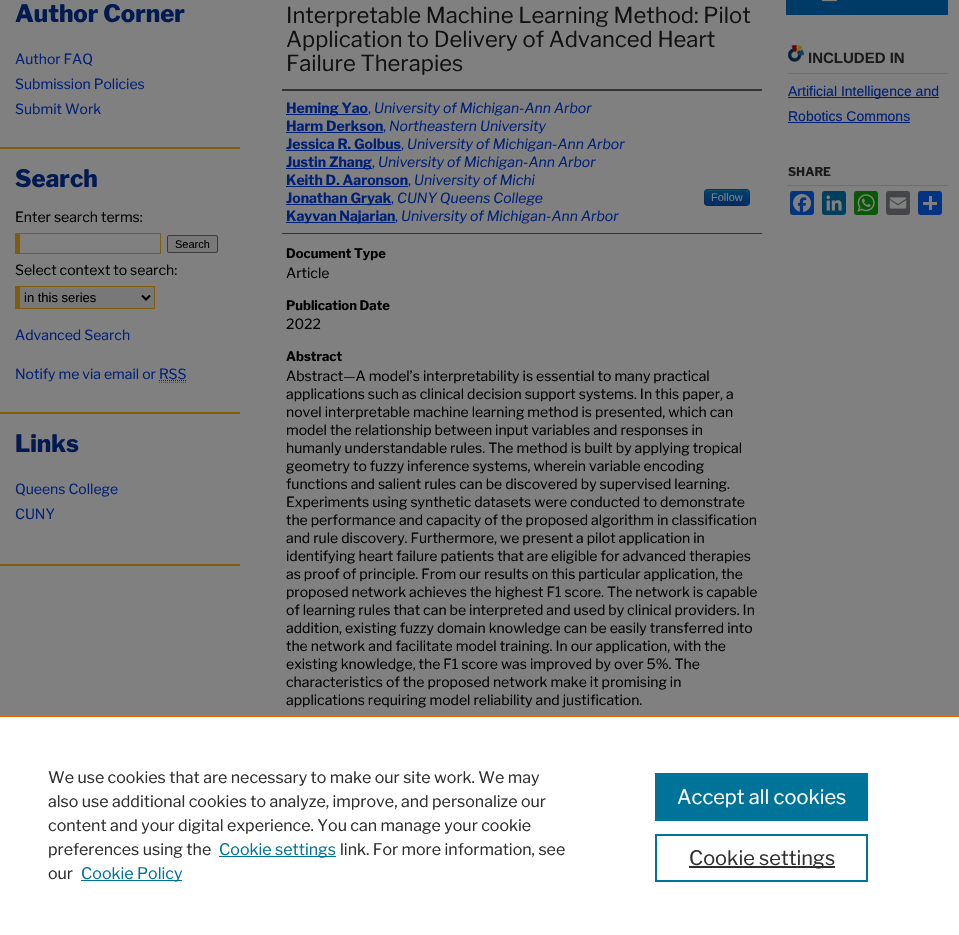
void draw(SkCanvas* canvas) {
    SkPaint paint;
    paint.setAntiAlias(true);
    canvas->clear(0xFF808080);
    paint.setColor(0xFF805C0E);
    canvas->drawRect(SkRect::MakeXYWH(0, 564, 240, 2), paint);
    SkFont font1(fontMgr->matchFamilyStyle("Libre Franklin", SkFontStyle(800, SkFontStyle::kNormal_Width, SkFontStyle::kUpright_Slant)), 24);
    font1.setSubpixel(true);
    paint.setColor(0xFF011A51);
    canvas->drawString("Author Corner", 15, 22, font1, paint);
    SkFont font2(fontMgr->matchFamilyStyle("Libre Franklin", SkFontStyle::Normal()), 14);
    font2.setSubpixel(true);
    paint.setColor(0xFF002078);
    canvas->drawString("Author FAQ", 15, 64, font2, paint);
    canvas->drawString("Submission Policies", 15, 89, font2, paint);
    canvas->drawString("Submit Work", 15, 114, font2, paint);
    paint.setColor(0xFF805C0E);
    canvas->drawRect(SkRect::MakeXYWH(0, 147, 240, 2), paint);
    paint.setColor(0xFF011A51);
    canvas->drawString("Search", 15, 187, font1, paint);
    paint.setColor(0xFF000000);
    canvas->drawString("Enter search terms:", 15, 222, font2, paint);
    paint.setColor(0xFF805C0E);
    canvas->drawRect(SkRect::MakeXYWH(15, 233, 146, 1), paint);
    canvas->drawRect(SkRect::MakeXYWH(160, 233, 1, 21), paint);
    canvas->drawRect(SkRect::MakeXYWH(15, 253, 146, 1), paint);
    canvas->drawRect(SkRect::MakeXYWH(15, 233, 5, 21), paint);
    paint.setColor(0xFF787878);
    canvas->drawRoundRect(SkRect::MakeXYWH(167.5f, 235.5f, 50, 17), 1.5f, 1.5f, paint);
    paint.setStyle(SkPaint::kStroke_Style);
    paint.setStrokeWidth(1);
    paint.setColor(0xFF3B3B3B);
    canvas->drawRoundRect(SkRect::MakeXYWH(167.5f, 235.5f, 50, 17), 1.5f, 1.5f, paint);
    SkFont font3(fontMgr->matchFamilyStyle("Liberation Sans", SkFontStyle::Normal()), 11);
    font3.setSubpixel(true);
    paint.setStyle(SkPaint::kFill_Style);
    paint.setColor(0xFF000000);
    canvas->drawString("Search", 175, 248, font3, paint);
    canvas->drawString("Select context to search:", 15, 275, font2, paint);
    paint.setColor(0xFF787878);
    canvas->drawRect(SkRect::MakeXYWH(20, 287, 134, 21), paint);
    paint.setColor(0xFF805C0E);
    canvas->drawRect(SkRect::MakeXYWH(15, 286, 140, 1), paint);
    canvas->drawRect(SkRect::MakeXYWH(154, 286, 1, 23), paint);
    canvas->drawRect(SkRect::MakeXYWH(15, 308, 140, 1), paint);
    canvas->drawRect(SkRect::MakeXYWH(15, 286, 5, 23), paint);
    paint.setStyle(SkPaint::kStroke_Style);
    paint.setStrokeWidth(2);
    paint.setColor(0xFF000000);
    canvas->drawPath(SkPathBuilder().moveTo(142, 295.5f).lineTo(146, 299.5f).lineTo(150, 295.5f).detach(), paint);
    SkFont font4(fontMgr->matchFamilyStyle("Liberation Sans", SkFontStyle::Normal()), 13);
    font4.setSubpixel(true);
    paint.setStyle(SkPaint::kFill_Style);
    canvas->drawString("in this series", 24, 302, font4, paint);
    paint.setColor(0xFF002078);
    canvas->drawString("Advanced Search", 15, 340, font2, paint);
    canvas->drawString("Notify me via email or RSS", 15, 379, font2, paint);
    paint.setStyle(SkPaint::kStroke_Style);
    paint.setStrokeWidth(1);
    paint.setPathEffect(SkDashPathEffect::Make({{1, 1}}, 0));
    canvas->drawPath(SkPathBuilder().moveTo(159, 380.5f).lineTo(186.5f, 380.5f).detach(), paint);
    paint.setPathEffect(nullptr);
    paint.setColor(0xFF4D4D4D);
    paint.setPathEffect(SkDashPathEffect::Make({{1, 1}}, 0));
    canvas->drawPath(SkPathBuilder().moveTo(159, 382.5f).lineTo(187, 382.5f).detach(), paint);
    paint.setPathEffect(nullptr);
    paint.setStyle(SkPaint::kFill_Style);
    paint.setColor(0xFF805C0E);
    canvas->drawRect(SkRect::MakeXYWH(0, 412, 240, 2), paint);
    paint.setColor(0xFF011A51);
    canvas->drawString("Links", 15, 452, font1, paint);
    paint.setColor(0xFF002078);
    canvas->drawString("Queens College", 15, 494, font2, paint);
    canvas->drawString("CUNY", 15, 519, font2, paint);
    SkFont font5(fontMgr->matchFamilyStyle("Libre Franklin", SkFontStyle::Normal()), 22);
    font5.setSubpixel(true);
    paint.setColor(0xFF111111);
    canvas->drawString("Interpretable Machine Learning Method: Pilot", 286, 23, font5, paint);
    canvas->drawString("Application to Delivery of Advanced Heart", 286, 47, font5, paint);
    canvas->drawString("Failure Therapies", 286, 71, font5, paint);
    paint.setColor(0xFF333333);
    canvas->drawRect(SkRect::MakeXYWH(282, 89, 480, 2), paint);
    canvas->drawRect(SkRect::MakeXYWH(282, 233, 480, 1), paint);
    paint.setColor(0xFF002078);
    canvas->drawRect(SkRect::MakeXYWH(286, 114, 82, 1), paint);
    SkFont font6(fontMgr->matchFamilyStyle("Libre Franklin", SkFontStyle::Bold()), 14);
    font6.setSubpixel(true);
    canvas->drawString("Heming Yao", 286, 113, font6, paint);
    canvas->drawString(",", 368, 113, font2, paint);
    SkFont font7(fontMgr->matchFamilyStyle("Libre Franklin", SkFontStyle::Italic()), 14);
    font7.setSubpixel(true);
    canvas->drawString("University of Michigan-Ann Arbor", 374, 113, font7, paint);
    canvas->drawString("Harm Derkson", 286, 131, font6, paint);
    canvas->drawRect(SkRect::MakeXYWH(286, 132, 97, 1), paint);
    canvas->drawString(",", 383, 131, font2, paint);
    canvas->drawString("Northeastern University", 389, 131, font7, paint);
    canvas->drawString("Jessica R. Golbus", 286, 149, font6, paint);
    canvas->drawRect(SkRect::MakeXYWH(286, 150, 115, 1), paint);
    canvas->drawString(",", 401, 149, font2, paint);
    canvas->drawString("University of Michigan-Ann Arbor", 407, 149, font7, paint);
    canvas->drawRect(SkRect::MakeXYWH(286, 168, 86, 1), paint);
    canvas->drawString("Justin Zhang", 286, 167, font6, paint);
    canvas->drawString(",", 372, 167, font2, paint);
    canvas->drawString("University of Michigan-Ann Arbor", 378, 167, font7, paint);
    canvas->drawString("Keith D. Aaronson", 286, 185, font6, paint);
    canvas->drawRect(SkRect::MakeXYWH(286, 186, 122, 1), paint);
    canvas->drawString(",", 408, 185, font2, paint);
    canvas->drawString("University of Michi", 414, 185, font7, paint);
    canvas->drawRect(SkRect::MakeXYWH(286, 204, 105, 1), paint);
    canvas->drawString("Jonathan Gryak", 286, 203, font6, paint);
    canvas->drawString(",", 391, 203, font2, paint);
    canvas->drawString("CUNY Queens College", 397, 203, font7, paint);
    paint.setColor(0xFF003A66);
    canvas->drawRoundRect(SkRect::MakeXYWH(704, 189, 46, 17), 4, 4, paint);
    canvas->save();
    canvas->clipPath(SkPathBuilder().moveTo(708, 189).lineTo(746, 189).cubicTo(748, 189, 750, 191, 750, 193).lineTo(750, 202).cubicTo(750, 204, 748, 206, 746, 206).lineTo(708, 206).cubicTo(706, 206, 704, 204, 704, 202).lineTo(704, 193).cubicTo(704, 191, 706, 189, 708, 189).close().detach(), true);
    {
        const SkColor colors[] = {0xFF004466, 0xFF002B66};
        const float stops[] = {0, 1};
        const SkPoint ends[] = {{727, 190}, {727, 205}};
        paint.setShader(SkGradientShader::MakeLinear(ends, colors, stops, 2, SkTileMode::kClamp));
        paint.setAlpha(255);
    }
    canvas->drawRect(SkRect::MakeXYWH(704, 190, 46, 15), paint);
    canvas->restore();
    paint.setShader(nullptr);
    paint.setColor(0x33808080);
    canvas->drawPath(SkPathBuilder().moveTo(708, 191).lineTo(733, 191).cubicTo(747, 191, 749, 187, 749, 202).cubicTo(749, 191, 752, 190, 740, 190).lineTo(714, 190).cubicTo(707, 190, 705, 189, 705, 196).lineTo(705, 203).cubicTo(705, 200, 704, 191, 708, 191).close().detach(), paint);
    paint.setStyle(SkPaint::kStroke_Style);
    paint.setColor(0x40000000);
    canvas->drawPath(SkPathBuilder().moveTo(748.5f, 204.5f).cubicTo(748, 205, 747, 205.5f, 746, 205.5f).lineTo(708, 205.5f).cubicTo(707, 205.5f, 706, 205, 705.5f, 204.5f).detach(), paint);
    paint.setColor(0x1A000000);
    canvas->drawPath(SkPathBuilder().moveTo(705.5f, 204.5f).cubicTo(704, 202.5f, 704.5f, 199.5f, 704.5f, 197.5f).cubicTo(704.5f, 188.5f, 705, 189.5f, 714.5f, 189.5f).lineTo(739.5f, 189.5f).cubicTo(749, 189.5f, 749.5f, 188.5f, 749.5f, 197.5f).cubicTo(749.5f, 199.5f, 750, 202.5f, 748.5f, 204.5f).detach(), paint);
    paint.setStyle(SkPaint::kFill_Style);
    paint.setColor(0xFF808080);
    canvas->drawString("Follow", 711, 201, font3, paint);
    paint.setColor(0xFF002078);
    canvas->drawRect(SkRect::MakeXYWH(286, 222, 109, 1), paint);
    canvas->drawString("Kayvan Najarian", 286, 221, font6, paint);
    canvas->drawString(",", 395, 221, font2, paint);
    canvas->drawString("University of Michigan-Ann Arbor", 401, 221, font7, paint);
    SkFont font8(fontMgr->matchFamilyStyle("Libre Franklin", SkFontStyle::Bold()), 13);
    font8.setSubpixel(true);
    paint.setColor(0xFF000000);
    canvas->drawString("Document Type", 286, 258, font8, paint);
    canvas->drawString("Article", 286, 278, font2, paint);
    canvas->drawString("Publication Date", 286, 310, font8, paint);
    canvas->drawString("2022", 286, 329, font2, paint);
    canvas->drawString("Abstract", 286, 361, font8, paint);
    canvas->drawString("Abstract—A model’s interpretability is essential to many practical", 286, 381, font2, paint);
    canvas->drawString("applications such as clinical decision support systems. In this paper, a", 286, 399, font2, paint);
    canvas->drawString("novel interpretable machine learning method is presented, which can", 286, 417, font2, paint);
    canvas->drawString("model the relationship between input variables and responses in", 286, 435, font2, paint);
    canvas->drawString("humanly understandable rules. The method is built by applying tropical", 286, 453, font2, paint);
    canvas->drawString("geometry to fuzzy inference systems, wherein variable encoding", 286, 471, font2, paint);
    canvas->drawString("functions and salient rules can be discovered by supervised learning.", 286, 489, font2, paint);
    canvas->drawString("Experiments using synthetic datasets were conducted to demonstrate", 286, 507, font2, paint);
    canvas->drawString("the performance and capacity of the proposed algorithm in classification", 286, 525, font2, paint);
    canvas->drawString("and rule discovery. Furthermore, we present a pilot application in", 286, 543, font2, paint);
    canvas->drawString("identifying heart failure patients that are eligible for advanced therapies", 286, 561, font2, paint);
    canvas->drawString("as proof of principle. From our results on this particular application, the", 286, 579, font2, paint);
    canvas->drawString("proposed network achieves the highest F1 score. The network is capable", 286, 597, font2, paint);
    canvas->drawString("of learning rules that can be interpreted and used by clinical providers. In", 286, 615, font2, paint);
    canvas->drawString("addition, existing fuzzy domain knowledge can be easily transferred into", 286, 633, font2, paint);
    canvas->drawString("the network and facilitate model training. In our application, with the", 286, 651, font2, paint);
    canvas->drawString("existing knowledge, the F1 score was improved by over 5%. The", 286, 669, font2, paint);
    canvas->drawString("characteristics of the proposed network make it promising in", 286, 687, font2, paint);
    canvas->drawString("applications requiring model reliability and justification.", 286, 705, font2, paint);
    paint.setColor(0xFF003A66);
    canvas->drawRect(SkRect::MakeXYWH(786, 0, 162, 15), paint);
    canvas->drawImageRect(SkImages::DeferredFromEncodedData(SkData::MakeFromFileName("img1.png")), SkRect::MakeXYWH(822, 0, 15, 2), SkSamplingOptions());
    canvas->drawImageRect(SkImages::DeferredFromEncodedData(SkData::MakeFromFileName("img2.png")), SkRect::MakeXYWH(788, 45, 16, 17), SkSamplingOptions());
    paint.setColor(0xFF6F6F6F);
    canvas->drawRect(SkRect::MakeXYWH(788, 73, 160, 1), paint);
    SkFont font9(fontMgr->matchFamilyStyle("Liberation Sans", SkFontStyle::Bold()), 15);
    font9.setSubpixel(true);
    paint.setColor(0xFF1A1A1A);
    canvas->drawString("INCLUDED IN", 808, 63, font9, paint);
    paint.setColor(0xFF002078);
    canvas->drawRect(SkRect::MakeXYWH(788, 97, 151, 1), paint);
    SkFont font10(fontMgr->matchFamilyStyle("Liberation Sans", SkFontStyle::Normal()), 14);
    font10.setSubpixel(true);
    canvas->drawString("Artificial Intelligence and", 788, 96, font10, paint);
    canvas->drawString("Robotics Commons", 788, 121, font10, paint);
    canvas->drawRect(SkRect::MakeXYWH(788, 122, 122, 1), paint);
    paint.setColor(0xFF6F6F6F);
    canvas->drawRect(SkRect::MakeXYWH(788, 185, 160, 1), paint);
    SkFont font11(fontMgr->matchFamilyStyle("Libre Franklin", SkFontStyle::Bold()), 12);
    font11.setSubpixel(true);
    paint.setColor(0xFF1A1A1A);
    canvas->drawString("SHARE", 788, 176, font11, paint);
    paint.setColor(0xFF043380);
    canvas->drawRoundRect(SkRect::MakeXYWH(790, 191, 24, 24), 3, 3, paint);
    canvas->drawImageRect(SkImages::DeferredFromEncodedData(SkData::MakeFromFileName("img3.png")), SkRect::MakeXYWH(793, 194, 18, 18), SkSamplingOptions());
    paint.setColor(0xFF003E5B);
    canvas->drawRoundRect(SkRect::MakeXYWH(822, 191, 24, 24), 3, 3, paint);
    canvas->drawImageRect(SkImages::DeferredFromEncodedData(SkData::MakeFromFileName("img4.png")), SkRect::MakeXYWH(826, 195, 16, 16), SkSamplingOptions());
    paint.setColor(0xFF095805);
    canvas->drawRoundRect(SkRect::MakeXYWH(854, 191, 24, 24), 3, 3, paint);
    canvas->drawImageRect(SkImages::DeferredFromEncodedData(SkData::MakeFromFileName("img5.png")), SkRect::MakeXYWH(857, 194, 18, 18), SkSamplingOptions());
    paint.setColor(0xFF444548);
    canvas->drawRoundRect(SkRect::MakeXYWH(886, 191, 24, 24), 3, 3, paint);
    canvas->drawImageRect(SkImages::DeferredFromEncodedData(SkData::MakeFromFileName("img6.png")), SkRect::MakeXYWH(889, 197, 18, 12), SkSamplingOptions());
    paint.setColor(0xFF013380);
    canvas->drawRoundRect(SkRect::MakeXYWH(918, 191, 24, 24), 3, 3, paint);
    paint.setColor(0xFF808080);
    canvas->drawRect(SkRect::MakeXYWH(929, 196, 3, 14), paint);
    canvas->drawRect(SkRect::MakeXYWH(923, 202, 14, 3), paint);
    paint.setColor(0xFFFFFFFF);
    canvas->drawRect(SkRect::MakeXYWH(0, 717, 959, 218), paint);
    paint.setColor(0xFFEB6500);
    canvas->drawRect(SkRect::MakeXYWH(0, 715, 959, 2), paint);
    SkFont font12(fontMgr->matchFamilyStyle("Libre Franklin", SkFontStyle::Normal()), 16);
    font12.setSubpixel(true);
    paint.setColor(0xFF2E2E2E);
    canvas->drawString("We use cookies that are necessary to make our site work. We may", 48, 783, font12, paint);
    canvas->drawString("also use additional cookies to analyze, improve, and personalize our", 48, 807, font12, paint);
    canvas->drawString("content and your digital experience. You can manage your cookie", 48, 831, font12, paint);
    canvas->drawString("preferences using the", 48, 855, font12, paint);
    paint.setColor(0xFF007398);
    canvas->drawRect(SkRect::MakeXYWH(219, 856, 117, 1), paint);
    canvas->drawString("Cookie settings", 219, 855, font12, paint);
    paint.setColor(0xFF2E2E2E);
    canvas->drawString("link. For more information, see", 340, 855, font12, paint);
    canvas->drawString("our", 48, 879, font12, paint);
    paint.setColor(0xFF007398);
    canvas->drawRect(SkRect::MakeXYWH(81, 880, 101, 1), paint);
    canvas->drawString("Cookie Policy", 81, 879, font12, paint);
    canvas->drawRect(SkRect::MakeXYWH(655, 773, 213, 48), paint);
    SkFont font13(fontMgr->matchFamilyStyle("Libre Franklin", SkFontStyle::Normal()), 20);
    font13.setSubpixel(true);
    paint.setColor(0xFFFFFFFF);
    canvas->drawString("Accept all cookies", 677, 804, font13, paint);
    paint.setStyle(SkPaint::kStroke_Style);
    paint.setStrokeWidth(2);
    paint.setColor(0xFF007398);
    canvas->drawRect(SkRect::MakeXYWH(656, 835, 211, 46), paint);
    paint.setStyle(SkPaint::kFill_Style);
    paint.setColor(0xFF2E2E2E);
    canvas->drawRect(SkRect::MakeXYWH(689, 866, 146, 2), paint);
    canvas->drawString("Cookie settings", 689, 865, font13, paint);
}
